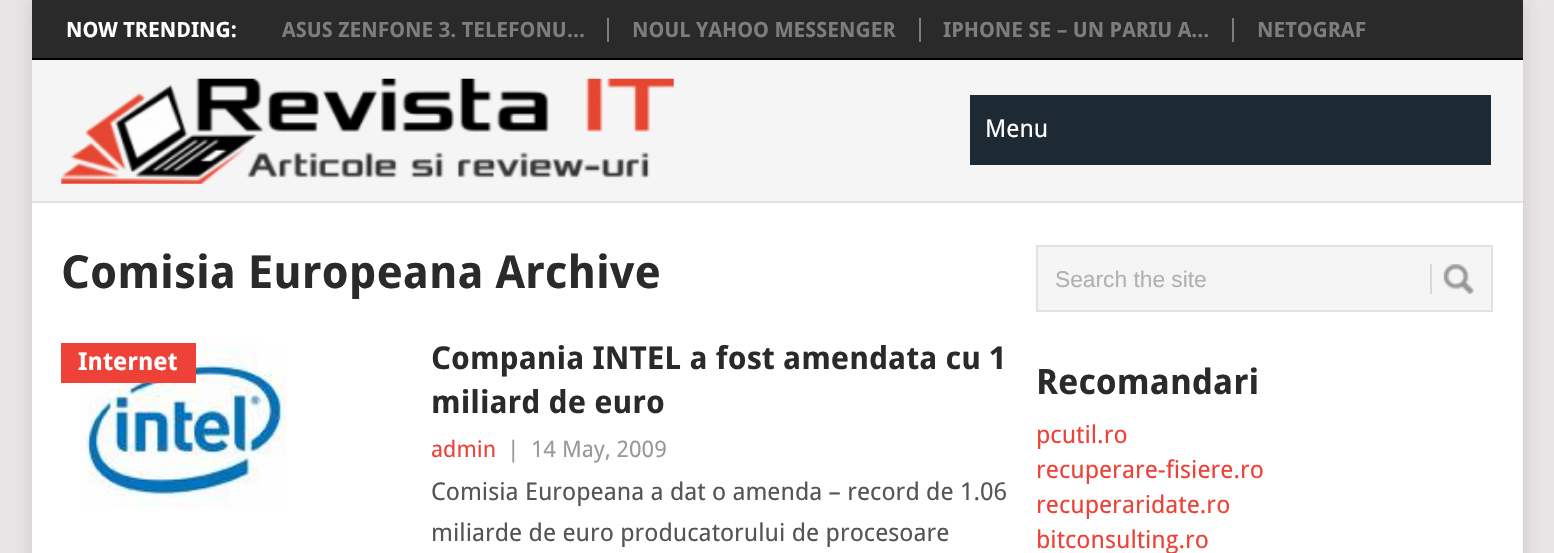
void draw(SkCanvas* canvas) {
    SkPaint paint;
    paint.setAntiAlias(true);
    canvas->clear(0xFFE7E5E6);
    paint.setColor(0x2B323232);
    paint.setMaskFilter(SkMaskFilter::MakeBlur(kNormal_SkBlurStyle, 9));
    canvas->drawRect(SkRect::MakeXYWH(32, 0, 1491, 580), paint);
    paint.setMaskFilter(nullptr);
    paint.setColor(0xFFFFFFFF);
    canvas->drawRect(SkRect::MakeXYWH(32, 203, 1491, 350), paint);
    paint.setColor(0xFF2A2A2A);
    canvas->drawRect(SkRect::MakeXYWH(32, 0, 1491, 58), paint);
    paint.setColor(0xFF000000);
    canvas->drawRect(SkRect::MakeXYWH(32, 58, 1491, 2), paint);
    SkFont font1(fontMgr->matchFamilyStyle("Droid Sans", SkFontStyle::Bold()), 21);
    font1.setSubpixel(true);
    paint.setColor(0xFFFFFFFF);
    canvas->drawString("NOW TRENDING:", 66, 37, font1, paint);
    paint.setColor(0xFF7D7D7D);
    canvas->drawRect(SkRect::MakeXYWH(607, 18, 2, 24), paint);
    canvas->drawString("ASUS ZENFONE 3. TELEFONU...", 282, 37, font1, paint);
    canvas->drawRect(SkRect::MakeXYWH(919, 18, 2, 24), paint);
    canvas->drawString("NOUL YAHOO MESSENGER", 632, 37, font1, paint);
    canvas->drawRect(SkRect::MakeXYWH(1232, 18, 2, 24), paint);
    canvas->drawString("IPHONE SE – UN PARIU A...", 943, 37, font1, paint);
    canvas->drawString("NETOGRAF", 1257, 37, font1, paint);
    paint.setColor(0xFFF5F5F5);
    canvas->drawRect(SkRect::MakeXYWH(32, 60, 1491, 141), paint);
    canvas->drawImageRect(SkImages::DeferredFromEncodedData(SkData::MakeFromFileName("img1.png")), SkRect::MakeXYWH(61, 78, 613, 106), SkSamplingOptions());
    paint.setColor(0xFF1D2933);
    canvas->drawRect(SkRect::MakeXYWH(970, 95, 521, 70), paint);
    SkFont font2(fontMgr->matchFamilyStyle("Droid Sans", SkFontStyle::Normal()), 24.5f);
    font2.setSubpixel(true);
    paint.setColor(0xFFFFFFFF);
    canvas->drawString("Menu", 985, 137, font2, paint);
    paint.setColor(0xFFE2E2E2);
    canvas->drawRect(SkRect::MakeXYWH(32, 201, 1491, 2), paint);
    SkFont font3(fontMgr->matchFamilyStyle("Droid Sans", SkFontStyle::Bold()), 45.5f);
    font3.setSubpixel(true);
    paint.setColor(0xFF2A2A2A);
    canvas->drawString("Comisia Europeana Archive", 61, 288, font3, paint);
    canvas->drawImageRect(SkImages::DeferredFromEncodedData(SkData::MakeFromFileName("img2.png")), SkRect::MakeXYWH(81, 343, 206, 166), SkSamplingOptions());
    paint.setColor(0xFFEE4238);
    canvas->drawRect(SkRect::MakeXYWH(61, 343, 135, 40), paint);
    SkFont font4(fontMgr->matchFamilyStyle("Droid Sans", SkFontStyle::Bold()), 24.5f);
    font4.setSubpixel(true);
    paint.setColor(0xFFFFFFFF);
    canvas->drawString("Internet", 78, 370, font4, paint);
    SkFont font5(fontMgr->matchFamilyStyle("Droid Sans", SkFontStyle::Bold()), 31.5f);
    font5.setSubpixel(true);
    paint.setColor(0xFF2A2A2A);
    canvas->drawString("Compania INTEL a fost amendata cu 1", 431, 369, font5, paint);
    canvas->drawString("miliard de euro", 431, 413, font5, paint);
    SkFont font6(fontMgr->matchFamilyStyle("Droid Sans", SkFontStyle::Normal()), 22.75f);
    font6.setSubpixel(true);
    paint.setColor(0xFFEE4238);
    canvas->drawString("admin", 431, 457, font6, paint);
    paint.setColor(0xFF999999);
    canvas->drawString("|", 507, 457, font6, paint);
    canvas->drawString("14 May, 2009", 531, 457, font6, paint);
    paint.setColor(0xFF555555);
    canvas->drawString("Comisia Europeana a dat o amenda – record de 1.06", 431, 500, font2, paint);
    canvas->drawString("miliarde de euro producatorului de procesoare", 431, 541, font2, paint);
    paint.setColor(0xFFF5F5F5);
    canvas->drawRect(SkRect::MakeXYWH(1037, 246, 455, 65), paint);
    paint.setStyle(SkPaint::kStroke_Style);
    paint.setStrokeWidth(2);
    paint.setColor(0xFFE2E2E2);
    canvas->drawRect(SkRect::MakeXYWH(1037, 246, 455, 65), paint);
    SkFont font7(fontMgr->matchFamilyStyle("Liberation Sans", SkFontStyle::Normal()), 22.75f);
    font7.setSubpixel(true);
    paint.setStyle(SkPaint::kFill_Style);
    paint.setColor(0xFFB1B1B1);
    canvas->drawString("Search the site", 1055, 287, font7, paint);
    canvas->drawImageRect(SkImages::DeferredFromEncodedData(SkData::MakeFromFileName("img3.png")), SkRect::MakeXYWH(1443, 264, 31, 30), SkSamplingOptions());
    paint.setColor(0xFFD8D8D8);
    canvas->drawRect(SkRect::MakeXYWH(1430, 264, 2, 30), paint);
    SkFont font8(fontMgr->matchFamilyStyle("Droid Sans", SkFontStyle::Bold()), 35);
    font8.setSubpixel(true);
    paint.setColor(0xFF2A2A2A);
    canvas->drawString("Recomandari", 1036, 394, font8, paint);
    paint.setColor(0xFFEE4238);
    canvas->drawString("pcutil.ro", 1036, 443, font2, paint);
    canvas->drawString("recuperare-fisiere.ro", 1036, 478, font2, paint);
    canvas->drawString("recuperaridate.ro", 1036, 513, font2, paint);
    canvas->drawString("bitconsulting.ro", 1036, 548, font2, paint);
}
